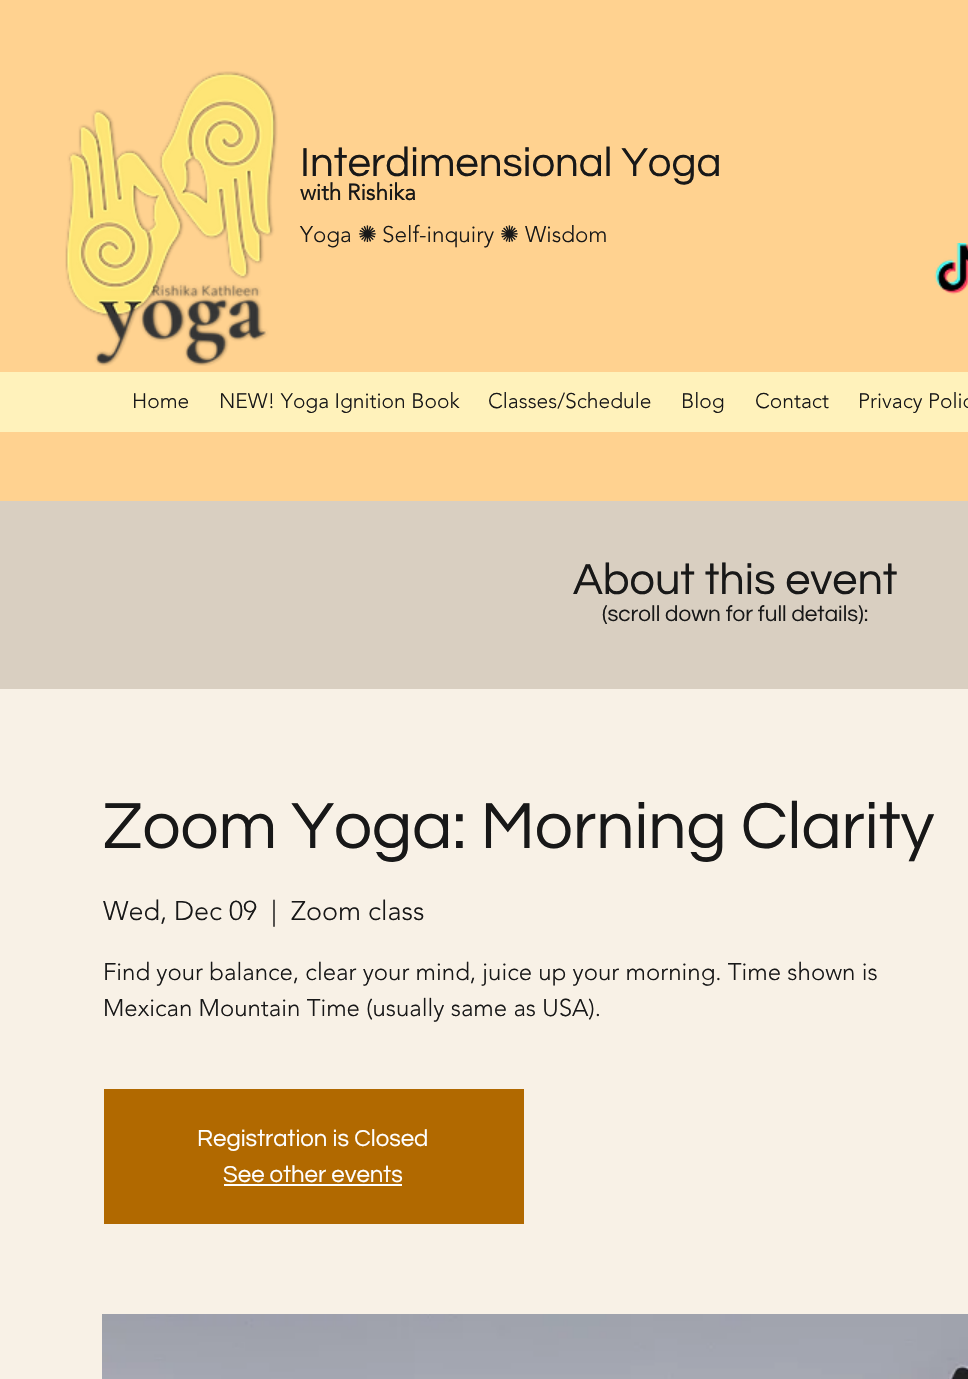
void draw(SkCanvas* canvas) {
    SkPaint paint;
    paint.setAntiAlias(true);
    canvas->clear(0xFFD9CFC1);
    paint.setColor(0xFFFFD290);
    canvas->drawRect(SkRect::MakeXYWH(0, 0, 968, 501), paint);
    canvas->drawImageRect(SkImages::DeferredFromEncodedData(SkData::MakeFromFileName("img1.png")), SkRect::MakeXYWH(65, 71, 213, 295), SkSamplingOptions());
    SkFont font1(fontMgr->matchFamilyStyle("Questrial", SkFontStyle::Normal()), 42);
    font1.setSubpixel(true);
    paint.setColor(0xFF181818);
    canvas->drawString("Interdimensional Yoga", 300, 176, font1, paint);
    SkFont font2(fontMgr->matchFamilyStyle("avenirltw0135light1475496", SkFontStyle::Bold()), 22.5f);
    font2.setSubpixel(true);
    canvas->drawString("with Rishika", 300, 200, font2, paint);
    SkFont font3(fontMgr->matchFamilyStyle("avenirltw0135light1475496", SkFontStyle(300, SkFontStyle::kNormal_Width, SkFontStyle::kUpright_Slant)), 22.5f);
    font3.setSubpixel(true);
    canvas->drawString("Yoga", 300, 242, font3, paint);
    SkFont font4(fontMgr->matchFamilyStyle("DejaVu Sans", SkFontStyle::Normal()), 22.5f);
    font4.setSubpixel(true);
    canvas->drawString("✺", 358, 242, font4, paint);
    canvas->drawString("Self-inquiry", 382, 242, font3, paint);
    canvas->drawString("✺", 500, 242, font4, paint);
    canvas->drawString("Wisdom", 525, 242, font3, paint);
    canvas->drawImageRect(SkImages::DeferredFromEncodedData(SkData::MakeFromFileName("img2.png")), SkRect::MakeXYWH(934, 243, 34, 52), SkSamplingOptions());
    paint.setColor(0xFFFFF2BB);
    canvas->drawRect(SkRect::MakeXYWH(0, 372, 968, 60), paint);
    SkFont font5(fontMgr->matchFamilyStyle("avenirltw0135light1475496", SkFontStyle(300, SkFontStyle::kNormal_Width, SkFontStyle::kUpright_Slant)), 21);
    font5.setSubpixel(true);
    paint.setColor(0xFF181818);
    canvas->drawString("Home", 132, 408, font5, paint);
    canvas->drawString("NEW! Yoga Ignition Book", 219, 408, font5, paint);
    canvas->drawString("Classes/Schedule", 488, 408, font5, paint);
    canvas->drawString("Blog", 681, 408, font5, paint);
    canvas->drawString("Contact", 755, 408, font5, paint);
    canvas->drawString("Privacy Polic", 858, 408, font5, paint);
    SkFont font6(fontMgr->matchFamilyStyle("Questrial", SkFontStyle::Normal()), 45);
    font6.setSubpixel(true);
    canvas->drawString("About this event", 573, 594, font6, paint);
    SkFont font7(fontMgr->matchFamilyStyle("Questrial", SkFontStyle::Normal()), 22.5f);
    font7.setSubpixel(true);
    canvas->drawString("(scroll down for full details):", 602, 621, font7, paint);
    paint.setColor(0xFFF8F1E6);
    canvas->drawRect(SkRect::MakeXYWH(0, 689, 968, 690), paint);
    SkFont font8(fontMgr->matchFamilyStyle("Questrial", SkFontStyle::Normal()), 67.5f);
    font8.setSubpixel(true);
    paint.setColor(0xFF181818);
    canvas->drawString("Zoom Yoga: Morning Clarity", 103, 848, font8, paint);
    SkFont font9(fontMgr->matchFamilyStyle("avenirltw0135light1475496", SkFontStyle(300, SkFontStyle::kNormal_Width, SkFontStyle::kUpright_Slant)), 27);
    font9.setSubpixel(true);
    canvas->drawString("Wed, Dec 09", 103, 920, font9, paint);
    canvas->drawString("|", 271, 920, font9, paint);
    canvas->drawString("Zoom class", 291, 920, font9, paint);
    SkFont font10(fontMgr->matchFamilyStyle("avenirltw0135light1475496", SkFontStyle(300, SkFontStyle::kNormal_Width, SkFontStyle::kUpright_Slant)), 24);
    font10.setSubpixel(true);
    canvas->drawString("Find your balance, clear your mind, juice up your morning. Time shown is", 103, 980, font10, paint);
    canvas->drawString("Mexican Mountain Time (usually same as USA).", 103, 1016, font10, paint);
    paint.setColor(0xFFB16900);
    canvas->drawRect(SkRect::MakeXYWH(104, 1089, 420, 135), paint);
    SkFont font11(fontMgr->matchFamilyStyle("Questrial", SkFontStyle::Normal()), 24);
    font11.setSubpixel(true);
    paint.setColor(0xFFFFFFFF);
    canvas->drawString("Registration is Closed", 197, 1146, font11, paint);
    canvas->drawString("See other events", 223, 1182, font11, paint);
    canvas->drawRect(SkRect::MakeXYWH(224, 1184, 178, 2), paint);
    canvas->drawImageRect(SkImages::DeferredFromEncodedData(SkData::MakeFromFileName("img3.png")), SkRect::MakeXYWH(102, 1314, 866, 65), SkSamplingOptions());
}
